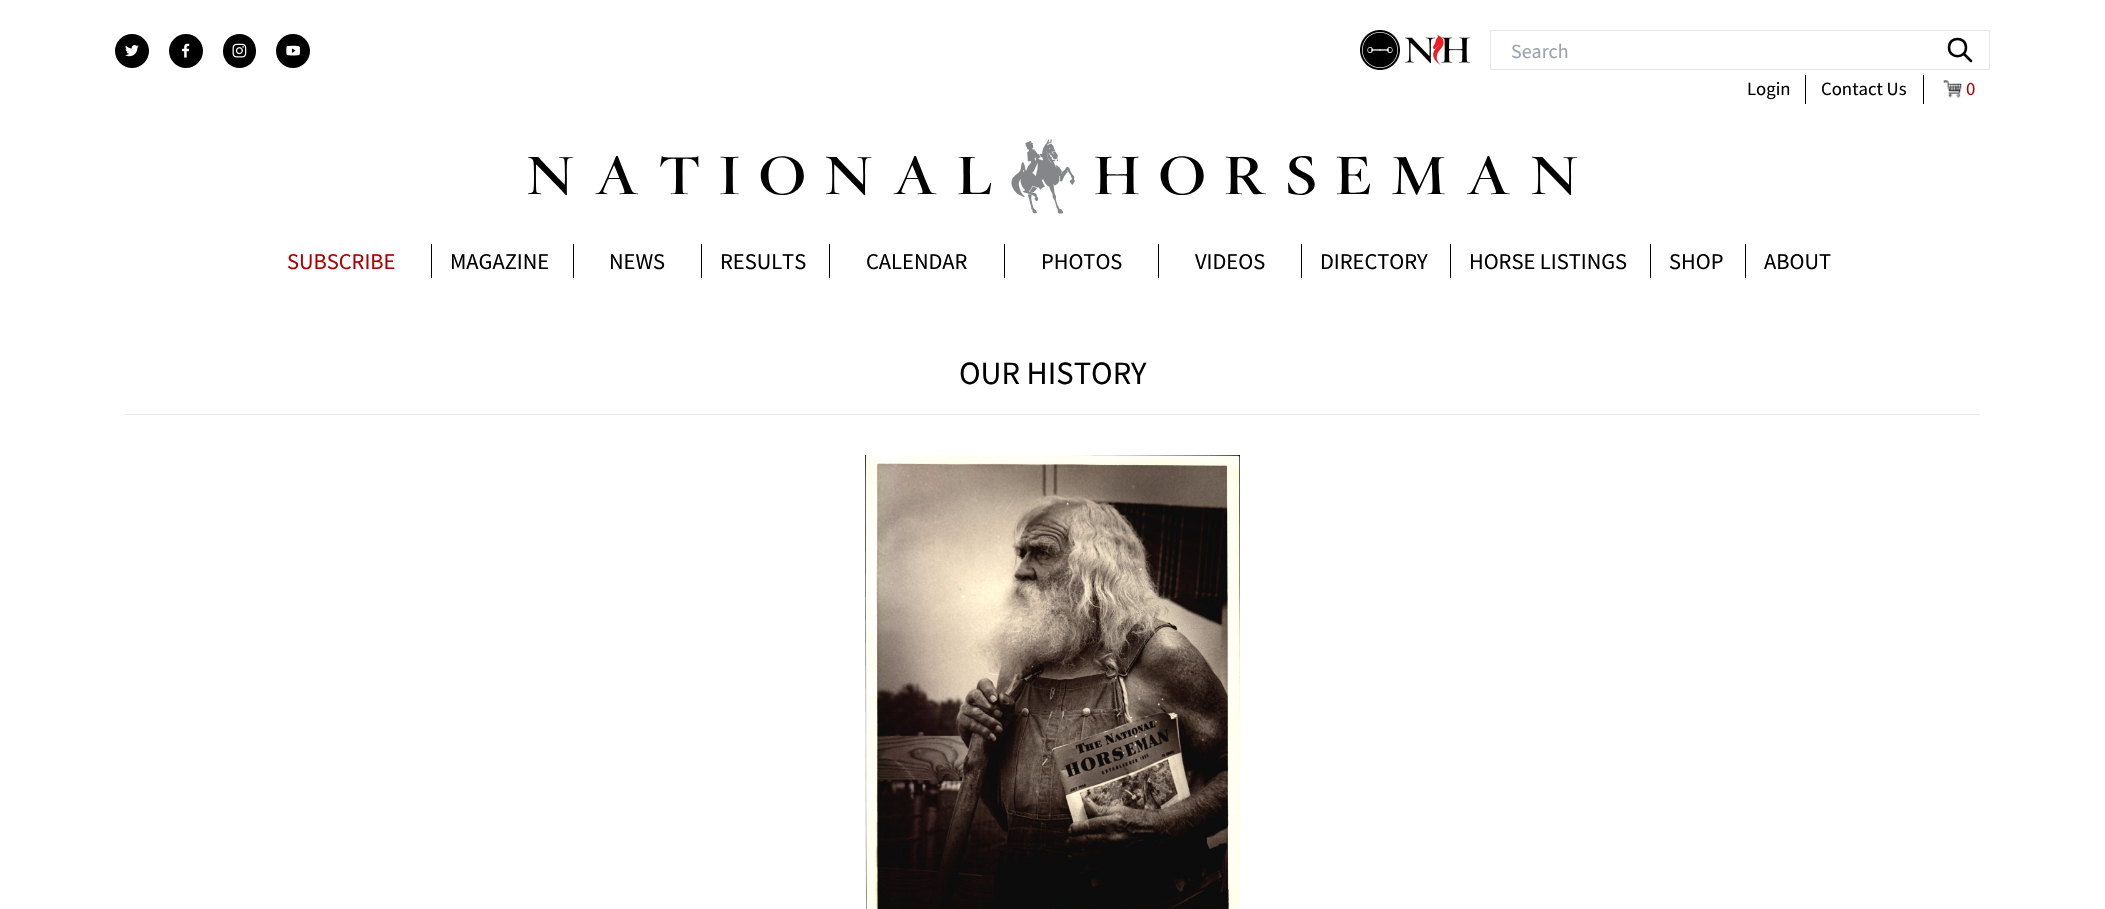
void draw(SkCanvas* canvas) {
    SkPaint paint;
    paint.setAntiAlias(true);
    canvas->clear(0xFFFFFFFF);
    paint.setColor(0xFF000000);
    canvas->drawCircle(132, 51, 17, paint);
    canvas->drawImageRect(SkImages::DeferredFromEncodedData(SkData::MakeFromFileName("img1.png")), SkRect::MakeXYWH(125, 45, 14, 12), SkSamplingOptions());
    canvas->drawCircle(186, 51, 17, paint);
    canvas->drawImageRect(SkImages::DeferredFromEncodedData(SkData::MakeFromFileName("img2.png")), SkRect::MakeXYWH(182, 43, 8, 15), SkSamplingOptions());
    canvas->drawRoundRect(SkRect::MakeXYWH(223, 34, 33, 34), 16.5f, 16.5f, paint);
    canvas->drawImageRect(SkImages::DeferredFromEncodedData(SkData::MakeFromFileName("img3.png")), SkRect::MakeXYWH(232, 43, 15, 15), SkSamplingOptions());
    canvas->drawCircle(293, 51, 17, paint);
    canvas->drawImageRect(SkImages::DeferredFromEncodedData(SkData::MakeFromFileName("img4.png")), SkRect::MakeXYWH(286, 45, 14, 11), SkSamplingOptions());
    canvas->drawImageRect(SkImages::DeferredFromEncodedData(SkData::MakeFromFileName("img5.png")), SkRect::MakeXYWH(1360, 30, 40, 40), SkSamplingOptions());
    canvas->drawImageRect(SkImages::DeferredFromEncodedData(SkData::MakeFromFileName("img6.png")), SkRect::MakeXYWH(1405, 35, 65, 30), SkSamplingOptions());
    paint.setStyle(SkPaint::kStroke_Style);
    paint.setStrokeWidth(1);
    paint.setColor(0xFFE5E5E5);
    canvas->drawRect(SkRect::MakeXYWH(1490.5f, 30.5f, 499, 39), paint);
    SkFont font1(fontMgr->matchFamilyStyle("Source Sans Pro", SkFontStyle::Normal()), 20);
    font1.setSubpixel(true);
    paint.setStyle(SkPaint::kFill_Style);
    paint.setColor(0xFF9CA3AF);
    canvas->drawString("Search", 1511, 58, font1, paint);
    paint.setStyle(SkPaint::kStroke_Style);
    paint.setStrokeWidth(2.5f);
    paint.setStrokeCap(SkPaint::kRound_Cap);
    paint.setStrokeJoin(SkPaint::kRound_Join);
    paint.setColor(0xFF000000);
    canvas->drawPath(SkPathBuilder().moveTo(1971, 61).lineTo(1964, 54).moveTo(1966, 47.5f).cubicTo(1966, 59, 1949, 59, 1949, 47.5f).cubicTo(1949, 36, 1966, 36, 1966, 47.5f).close().detach(), paint);
    paint.setStyle(SkPaint::kFill_Style);
    canvas->drawRect(SkRect::MakeXYWH(1805, 75, 1, 29), paint);
    SkFont font2(fontMgr->matchFamilyStyle("Source Sans Pro", SkFontStyle::Normal()), 18.75f);
    font2.setSubpixel(true);
    canvas->drawString("Login", 1747, 95, font2, paint);
    canvas->drawRect(SkRect::MakeXYWH(1923, 75, 1, 29), paint);
    canvas->drawString("Contact Us", 1821, 95, font2, paint);
    canvas->drawImageRect(SkImages::DeferredFromEncodedData(SkData::MakeFromFileName("img7.png")), SkRect::MakeXYWH(1943, 80, 19, 18), SkSamplingOptions());
    paint.setColor(0xFFAB0303);
    canvas->drawString("0", 1966, 95, font2, paint);
    canvas->drawImageRect(SkImages::DeferredFromEncodedData(SkData::MakeFromFileName("img8.png")), SkRect::MakeXYWH(528, 139, 1050, 75), SkSamplingOptions());
    paint.setColor(0xFF000000);
    canvas->drawRect(SkRect::MakeXYWH(431, 244, 1, 34), paint);
    SkFont font3(fontMgr->matchFamilyStyle("Source Sans Pro", SkFontStyle::Normal()), 22.5f);
    font3.setSubpixel(true);
    paint.setColor(0xFFAB0303);
    canvas->drawString("SUBSCRIBE", 287, 269, font3, paint);
    paint.setColor(0xFF000000);
    canvas->drawRect(SkRect::MakeXYWH(573, 244, 1, 34), paint);
    canvas->drawString("MAGAZINE", 450, 269, font3, paint);
    canvas->drawRect(SkRect::MakeXYWH(701, 244, 1, 34), paint);
    canvas->drawString("NEWS", 609, 269, font3, paint);
    canvas->drawRect(SkRect::MakeXYWH(829, 244, 1, 34), paint);
    canvas->drawString("RESULTS", 720, 269, font3, paint);
    canvas->drawRect(SkRect::MakeXYWH(1004, 244, 1, 34), paint);
    canvas->drawString("CALENDAR", 866, 269, font3, paint);
    canvas->drawRect(SkRect::MakeXYWH(1158, 244, 1, 34), paint);
    canvas->drawString("PHOTOS", 1041, 269, font3, paint);
    canvas->drawRect(SkRect::MakeXYWH(1301, 244, 1, 34), paint);
    canvas->drawString("VIDEOS", 1195, 269, font3, paint);
    canvas->drawRect(SkRect::MakeXYWH(1450, 244, 1, 34), paint);
    canvas->drawString("DIRECTORY", 1320, 269, font3, paint);
    canvas->drawRect(SkRect::MakeXYWH(1650, 244, 1, 34), paint);
    canvas->drawString("HORSE LISTINGS", 1469, 269, font3, paint);
    canvas->drawRect(SkRect::MakeXYWH(1745, 244, 1, 34), paint);
    canvas->drawString("SHOP", 1669, 269, font3, paint);
    canvas->drawString("ABOUT", 1764, 269, font3, paint);
    paint.setColor(0xFFE5E7EB);
    canvas->drawRect(SkRect::MakeXYWH(125, 414, 1855, 1), paint);
    SkFont font4(fontMgr->matchFamilyStyle("Source Sans Pro", SkFontStyle::Normal()), 32.5f);
    font4.setSubpixel(true);
    paint.setColor(0xFF000000);
    canvas->drawString("OUR HISTORY", 959, 384, font4, paint);
    canvas->drawImageRect(SkImages::DeferredFromEncodedData(SkData::MakeFromFileName("img9.png")), SkRect::MakeXYWH(865, 455, 375, 454), SkSamplingOptions());
}
